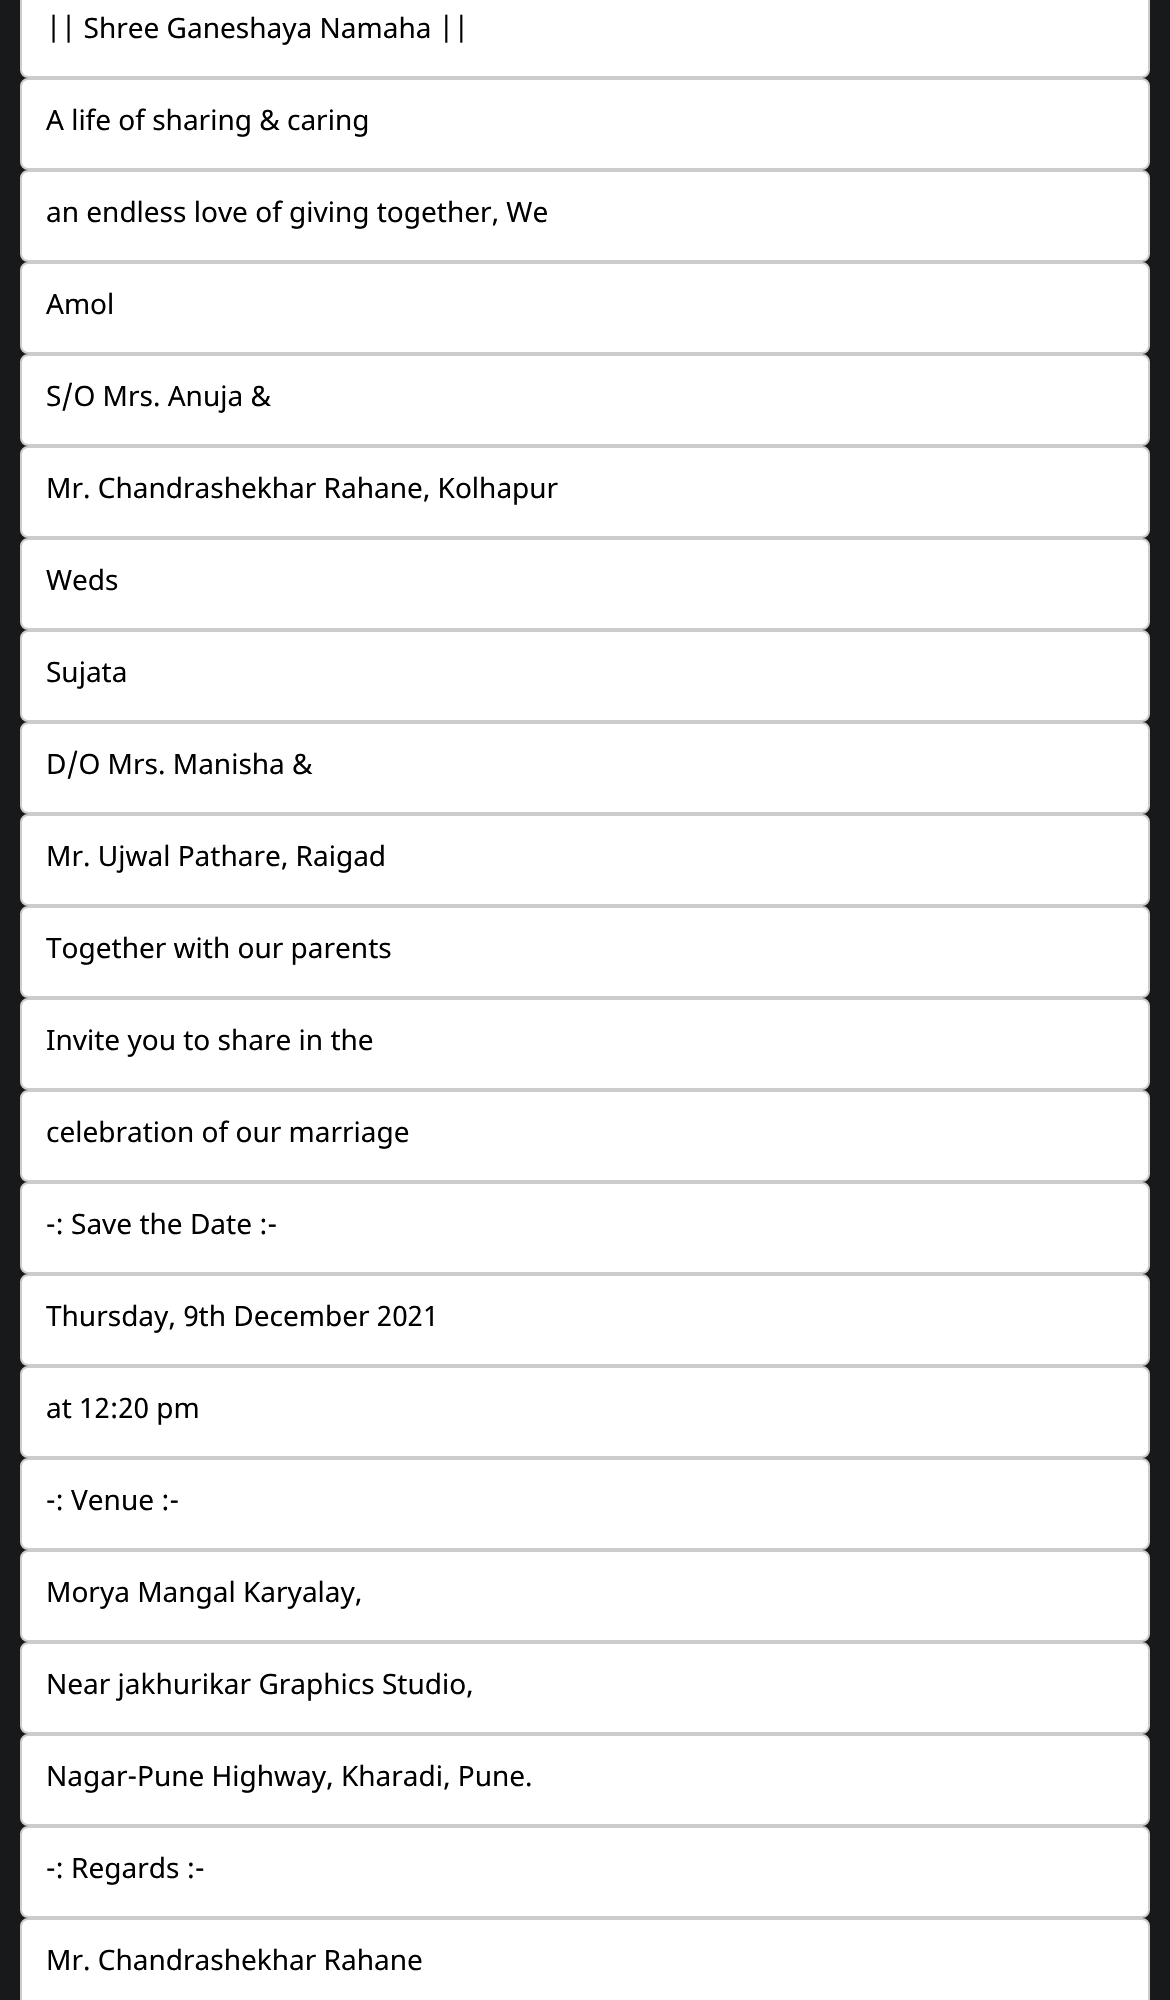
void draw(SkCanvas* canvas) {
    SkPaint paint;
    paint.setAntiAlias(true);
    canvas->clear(0xFF18191B);
    paint.setColor(0xFFFFFFFF);
    canvas->drawRoundRect(SkRect::MakeXYWH(21, -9, 1128, 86), 7, 7, paint);
    paint.setStyle(SkPaint::kStroke_Style);
    paint.setStrokeWidth(2);
    paint.setColor(0xFFCCCCCC);
    canvas->drawRoundRect(SkRect::MakeXYWH(21, -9, 1128, 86), 7, 7, paint);
    SkFont font1(fontMgr->matchFamilyStyle("Noto Sans Devanagari", SkFontStyle::Normal()), 28);
    font1.setSubpixel(true);
    paint.setStyle(SkPaint::kFill_Style);
    paint.setColor(0xFF000000);
    canvas->drawString("|| Shree Ganeshaya Namaha ||", 46, 38, font1, paint);
    paint.setColor(0xFFFFFFFF);
    canvas->drawRoundRect(SkRect::MakeXYWH(21, 79, 1128, 90), 7, 7, paint);
    paint.setStyle(SkPaint::kStroke_Style);
    paint.setColor(0xFFCCCCCC);
    canvas->drawRoundRect(SkRect::MakeXYWH(21, 79, 1128, 90), 7, 7, paint);
    paint.setStyle(SkPaint::kFill_Style);
    paint.setColor(0xFF000000);
    canvas->drawString("A life of sharing & caring", 46, 130, font1, paint);
    paint.setColor(0xFFFFFFFF);
    canvas->drawRoundRect(SkRect::MakeXYWH(21, 171, 1128, 90), 7, 7, paint);
    paint.setStyle(SkPaint::kStroke_Style);
    paint.setColor(0xFFCCCCCC);
    canvas->drawRoundRect(SkRect::MakeXYWH(21, 171, 1128, 90), 7, 7, paint);
    paint.setStyle(SkPaint::kFill_Style);
    paint.setColor(0xFF000000);
    canvas->drawString("an endless love of giving together, We", 46, 222, font1, paint);
    paint.setColor(0xFFFFFFFF);
    canvas->drawRoundRect(SkRect::MakeXYWH(21, 263, 1128, 90), 7, 7, paint);
    paint.setStyle(SkPaint::kStroke_Style);
    paint.setColor(0xFFCCCCCC);
    canvas->drawRoundRect(SkRect::MakeXYWH(21, 263, 1128, 90), 7, 7, paint);
    paint.setStyle(SkPaint::kFill_Style);
    paint.setColor(0xFF000000);
    canvas->drawString("Amol", 46, 314, font1, paint);
    paint.setColor(0xFFFFFFFF);
    canvas->drawRoundRect(SkRect::MakeXYWH(21, 355, 1128, 90), 7, 7, paint);
    paint.setStyle(SkPaint::kStroke_Style);
    paint.setColor(0xFFCCCCCC);
    canvas->drawRoundRect(SkRect::MakeXYWH(21, 355, 1128, 90), 7, 7, paint);
    paint.setStyle(SkPaint::kFill_Style);
    paint.setColor(0xFF000000);
    canvas->drawString("S/O Mrs. Anuja &", 46, 406, font1, paint);
    paint.setColor(0xFFFFFFFF);
    canvas->drawRoundRect(SkRect::MakeXYWH(21, 447, 1128, 90), 7, 7, paint);
    paint.setStyle(SkPaint::kStroke_Style);
    paint.setColor(0xFFCCCCCC);
    canvas->drawRoundRect(SkRect::MakeXYWH(21, 447, 1128, 90), 7, 7, paint);
    paint.setStyle(SkPaint::kFill_Style);
    paint.setColor(0xFF000000);
    canvas->drawString("Mr. Chandrashekhar Rahane, Kolhapur", 46, 498, font1, paint);
    paint.setColor(0xFFFFFFFF);
    canvas->drawRoundRect(SkRect::MakeXYWH(21, 539, 1128, 90), 7, 7, paint);
    paint.setStyle(SkPaint::kStroke_Style);
    paint.setColor(0xFFCCCCCC);
    canvas->drawRoundRect(SkRect::MakeXYWH(21, 539, 1128, 90), 7, 7, paint);
    paint.setStyle(SkPaint::kFill_Style);
    paint.setColor(0xFF000000);
    canvas->drawString("Weds", 46, 590, font1, paint);
    paint.setColor(0xFFFFFFFF);
    canvas->drawRoundRect(SkRect::MakeXYWH(21, 631, 1128, 90), 7, 7, paint);
    paint.setStyle(SkPaint::kStroke_Style);
    paint.setColor(0xFFCCCCCC);
    canvas->drawRoundRect(SkRect::MakeXYWH(21, 631, 1128, 90), 7, 7, paint);
    paint.setStyle(SkPaint::kFill_Style);
    paint.setColor(0xFF000000);
    canvas->drawString("Sujata", 46, 682, font1, paint);
    paint.setColor(0xFFFFFFFF);
    canvas->drawRoundRect(SkRect::MakeXYWH(21, 723, 1128, 90), 7, 7, paint);
    paint.setStyle(SkPaint::kStroke_Style);
    paint.setColor(0xFFCCCCCC);
    canvas->drawRoundRect(SkRect::MakeXYWH(21, 723, 1128, 90), 7, 7, paint);
    paint.setStyle(SkPaint::kFill_Style);
    paint.setColor(0xFF000000);
    canvas->drawString("D/O Mrs. Manisha &", 46, 774, font1, paint);
    paint.setColor(0xFFFFFFFF);
    canvas->drawRoundRect(SkRect::MakeXYWH(21, 815, 1128, 90), 7, 7, paint);
    paint.setStyle(SkPaint::kStroke_Style);
    paint.setColor(0xFFCCCCCC);
    canvas->drawRoundRect(SkRect::MakeXYWH(21, 815, 1128, 90), 7, 7, paint);
    paint.setStyle(SkPaint::kFill_Style);
    paint.setColor(0xFF000000);
    canvas->drawString("Mr. Ujwal Pathare, Raigad", 46, 866, font1, paint);
    paint.setColor(0xFFFFFFFF);
    canvas->drawRoundRect(SkRect::MakeXYWH(21, 907, 1128, 90), 7, 7, paint);
    paint.setStyle(SkPaint::kStroke_Style);
    paint.setColor(0xFFCCCCCC);
    canvas->drawRoundRect(SkRect::MakeXYWH(21, 907, 1128, 90), 7, 7, paint);
    paint.setStyle(SkPaint::kFill_Style);
    paint.setColor(0xFF000000);
    canvas->drawString("Together with our parents", 46, 958, font1, paint);
    paint.setColor(0xFFFFFFFF);
    canvas->drawRoundRect(SkRect::MakeXYWH(21, 999, 1128, 90), 7, 7, paint);
    paint.setStyle(SkPaint::kStroke_Style);
    paint.setColor(0xFFCCCCCC);
    canvas->drawRoundRect(SkRect::MakeXYWH(21, 999, 1128, 90), 7, 7, paint);
    paint.setStyle(SkPaint::kFill_Style);
    paint.setColor(0xFF000000);
    canvas->drawString("Invite you to share in the", 46, 1050, font1, paint);
    paint.setColor(0xFFFFFFFF);
    canvas->drawRoundRect(SkRect::MakeXYWH(21, 1091, 1128, 90), 7, 7, paint);
    paint.setStyle(SkPaint::kStroke_Style);
    paint.setColor(0xFFCCCCCC);
    canvas->drawRoundRect(SkRect::MakeXYWH(21, 1091, 1128, 90), 7, 7, paint);
    paint.setStyle(SkPaint::kFill_Style);
    paint.setColor(0xFF000000);
    canvas->drawString("celebration of our marriage", 46, 1142, font1, paint);
    paint.setColor(0xFFFFFFFF);
    canvas->drawRoundRect(SkRect::MakeXYWH(21, 1183, 1128, 90), 7, 7, paint);
    paint.setStyle(SkPaint::kStroke_Style);
    paint.setColor(0xFFCCCCCC);
    canvas->drawRoundRect(SkRect::MakeXYWH(21, 1183, 1128, 90), 7, 7, paint);
    paint.setStyle(SkPaint::kFill_Style);
    paint.setColor(0xFF000000);
    canvas->drawString("-: Save the Date :-", 46, 1234, font1, paint);
    paint.setColor(0xFFFFFFFF);
    canvas->drawRoundRect(SkRect::MakeXYWH(21, 1275, 1128, 90), 7, 7, paint);
    paint.setStyle(SkPaint::kStroke_Style);
    paint.setColor(0xFFCCCCCC);
    canvas->drawRoundRect(SkRect::MakeXYWH(21, 1275, 1128, 90), 7, 7, paint);
    paint.setStyle(SkPaint::kFill_Style);
    paint.setColor(0xFF000000);
    canvas->drawString("Thursday, 9th December 2021", 46, 1326, font1, paint);
    paint.setColor(0xFFFFFFFF);
    canvas->drawRoundRect(SkRect::MakeXYWH(21, 1367, 1128, 90), 7, 7, paint);
    paint.setStyle(SkPaint::kStroke_Style);
    paint.setColor(0xFFCCCCCC);
    canvas->drawRoundRect(SkRect::MakeXYWH(21, 1367, 1128, 90), 7, 7, paint);
    paint.setStyle(SkPaint::kFill_Style);
    paint.setColor(0xFF000000);
    canvas->drawString("at 12:20 pm", 46, 1418, font1, paint);
    paint.setColor(0xFFFFFFFF);
    canvas->drawRoundRect(SkRect::MakeXYWH(21, 1459, 1128, 90), 7, 7, paint);
    paint.setStyle(SkPaint::kStroke_Style);
    paint.setColor(0xFFCCCCCC);
    canvas->drawRoundRect(SkRect::MakeXYWH(21, 1459, 1128, 90), 7, 7, paint);
    paint.setStyle(SkPaint::kFill_Style);
    paint.setColor(0xFF000000);
    canvas->drawString("-: Venue :-", 46, 1510, font1, paint);
    paint.setColor(0xFFFFFFFF);
    canvas->drawRoundRect(SkRect::MakeXYWH(21, 1551, 1128, 90), 7, 7, paint);
    paint.setStyle(SkPaint::kStroke_Style);
    paint.setColor(0xFFCCCCCC);
    canvas->drawRoundRect(SkRect::MakeXYWH(21, 1551, 1128, 90), 7, 7, paint);
    paint.setStyle(SkPaint::kFill_Style);
    paint.setColor(0xFF000000);
    canvas->drawString("Morya Mangal Karyalay,", 46, 1602, font1, paint);
    paint.setColor(0xFFFFFFFF);
    canvas->drawRoundRect(SkRect::MakeXYWH(21, 1643, 1128, 90), 7, 7, paint);
    paint.setStyle(SkPaint::kStroke_Style);
    paint.setColor(0xFFCCCCCC);
    canvas->drawRoundRect(SkRect::MakeXYWH(21, 1643, 1128, 90), 7, 7, paint);
    paint.setStyle(SkPaint::kFill_Style);
    paint.setColor(0xFF000000);
    canvas->drawString("Near jakhurikar Graphics Studio,", 46, 1694, font1, paint);
    paint.setColor(0xFFFFFFFF);
    canvas->drawRoundRect(SkRect::MakeXYWH(21, 1735, 1128, 90), 7, 7, paint);
    paint.setStyle(SkPaint::kStroke_Style);
    paint.setColor(0xFFCCCCCC);
    canvas->drawRoundRect(SkRect::MakeXYWH(21, 1735, 1128, 90), 7, 7, paint);
    paint.setStyle(SkPaint::kFill_Style);
    paint.setColor(0xFF000000);
    canvas->drawString("Nagar-Pune Highway, Kharadi, Pune.", 46, 1786, font1, paint);
    paint.setColor(0xFFFFFFFF);
    canvas->drawRoundRect(SkRect::MakeXYWH(21, 1827, 1128, 90), 7, 7, paint);
    paint.setStyle(SkPaint::kStroke_Style);
    paint.setColor(0xFFCCCCCC);
    canvas->drawRoundRect(SkRect::MakeXYWH(21, 1827, 1128, 90), 7, 7, paint);
    paint.setStyle(SkPaint::kFill_Style);
    paint.setColor(0xFF000000);
    canvas->drawString("-: Regards :-", 46, 1878, font1, paint);
    paint.setColor(0xFFFFFFFF);
    canvas->drawRoundRect(SkRect::MakeXYWH(21, 1919, 1128, 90), 7, 7, paint);
    paint.setStyle(SkPaint::kStroke_Style);
    paint.setColor(0xFFCCCCCC);
    canvas->drawRoundRect(SkRect::MakeXYWH(21, 1919, 1128, 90), 7, 7, paint);
    paint.setStyle(SkPaint::kFill_Style);
    paint.setColor(0xFF000000);
    canvas->drawString("Mr. Chandrashekhar Rahane", 46, 1970, font1, paint);
}
